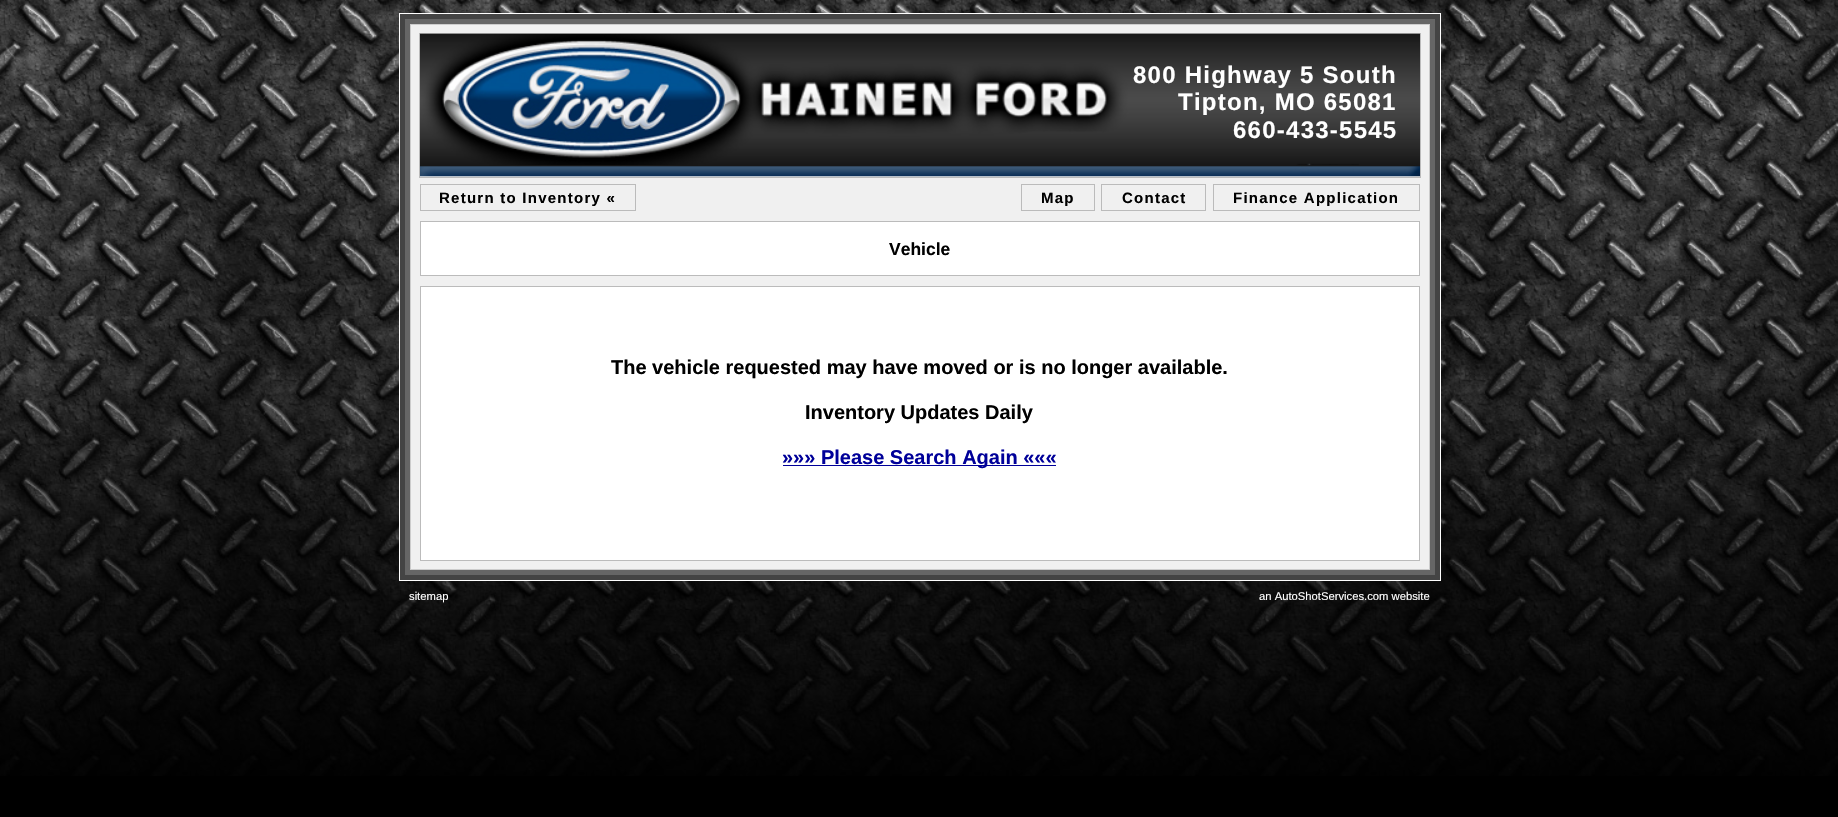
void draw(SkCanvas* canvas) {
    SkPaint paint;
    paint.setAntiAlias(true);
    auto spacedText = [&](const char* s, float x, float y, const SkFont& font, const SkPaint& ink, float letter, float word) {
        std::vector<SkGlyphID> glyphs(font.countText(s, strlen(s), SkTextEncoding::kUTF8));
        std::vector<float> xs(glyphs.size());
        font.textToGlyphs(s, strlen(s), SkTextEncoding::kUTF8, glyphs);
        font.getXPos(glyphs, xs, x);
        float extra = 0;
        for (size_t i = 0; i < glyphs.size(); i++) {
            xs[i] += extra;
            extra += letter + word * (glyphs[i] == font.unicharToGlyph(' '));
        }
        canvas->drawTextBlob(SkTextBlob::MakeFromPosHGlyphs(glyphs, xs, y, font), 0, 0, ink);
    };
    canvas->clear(0xFF000000);
    canvas->drawImageRect(SkImages::DeferredFromEncodedData(SkData::MakeFromFileName("img1.png")), SkRect::MakeXYWH(0, 0, 1838, 776), SkSamplingOptions());
    paint.setStyle(SkPaint::kStroke_Style);
    paint.setStrokeWidth(1);
    paint.setColor(0xFFFFFFFF);
    canvas->drawRect(SkRect::MakeXYWH(399.5f, 13.5f, 1041, 567), paint);
    paint.setStyle(SkPaint::kFill_Style);
    paint.setColor(0xFF666666);
    canvas->drawRect(SkRect::MakeXYWH(402.5f, 16.5f, 1035, 561), paint);
    paint.setStyle(SkPaint::kStroke_Style);
    paint.setStrokeWidth(5);
    paint.setColor(0xFF444444);
    canvas->drawRect(SkRect::MakeXYWH(402.5f, 16.5f, 1035, 561), paint);
    paint.setStyle(SkPaint::kFill_Style);
    paint.setColor(0xFFF0F0F0);
    canvas->drawRect(SkRect::MakeXYWH(410.5f, 24.5f, 1019, 545), paint);
    paint.setStyle(SkPaint::kStroke_Style);
    paint.setStrokeWidth(1);
    paint.setColor(0xFFCCCCCC);
    canvas->drawRect(SkRect::MakeXYWH(410.5f, 24.5f, 1019, 545), paint);
    paint.setColor(0xFFBBBBBB);
    canvas->drawRect(SkRect::MakeXYWH(419.5f, 33.5f, 1001, 144), paint);
    canvas->drawImageRect(SkImages::DeferredFromEncodedData(SkData::MakeFromFileName("img2.png")), SkRect::MakeXYWH(420, 33, 1000, 144), SkSamplingOptions());
    SkFont font1(fontMgr->matchFamilyStyle("Liberation Sans", SkFontStyle::Bold()), 24);
    font1.setSubpixel(true);
    paint.setStyle(SkPaint::kFill_Style);
    paint.setColor(0xFFFFFFFF);
    spacedText("800 Highway 5 South", 1133, 83, font1, paint, 1.25f, 0);
    spacedText("Tipton, MO 65081", 1178, 110, font1, paint, 1.25f, 0);
    spacedText("660-433-5545", 1233, 138, font1, paint, 1.25f, 0);
    paint.setStyle(SkPaint::kStroke_Style);
    paint.setColor(0xFFBBBBBB);
    canvas->drawRect(SkRect::MakeXYWH(420.5f, 184.5f, 215, 26), paint);
    SkFont font2(fontMgr->matchFamilyStyle("Liberation Sans", SkFontStyle::Bold()), 15);
    font2.setSubpixel(true);
    paint.setStyle(SkPaint::kFill_Style);
    paint.setColor(0xFF000000);
    spacedText("Return to Inventory «", 439, 203, font2, paint, 1.25f, 0);
    paint.setStyle(SkPaint::kStroke_Style);
    paint.setColor(0xFFBBBBBB);
    canvas->drawRect(SkRect::MakeXYWH(1021.5f, 184.5f, 73, 26), paint);
    paint.setStyle(SkPaint::kFill_Style);
    paint.setColor(0xFF000000);
    spacedText("Map", 1041, 203, font2, paint, 1.25f, 0);
    paint.setStyle(SkPaint::kStroke_Style);
    paint.setColor(0xFFBBBBBB);
    canvas->drawRect(SkRect::MakeXYWH(1101.5f, 184.5f, 104, 26), paint);
    paint.setStyle(SkPaint::kFill_Style);
    paint.setColor(0xFF000000);
    spacedText("Contact", 1122, 203, font2, paint, 1.25f, 0);
    paint.setStyle(SkPaint::kStroke_Style);
    paint.setColor(0xFFBBBBBB);
    canvas->drawRect(SkRect::MakeXYWH(1213.5f, 184.5f, 206, 26), paint);
    paint.setStyle(SkPaint::kFill_Style);
    paint.setColor(0xFF000000);
    spacedText("Finance Application", 1233, 203, font2, paint, 1.25f, 0);
    paint.setColor(0xFFFFFFFF);
    canvas->drawRect(SkRect::MakeXYWH(421, 222, 998, 53), paint);
    paint.setColor(0xFFBBBBBB);
    canvas->drawRect(SkRect::MakeXYWH(420, 221, 1000, 1), paint);
    canvas->drawRect(SkRect::MakeXYWH(1419, 221, 1, 55), paint);
    canvas->drawRect(SkRect::MakeXYWH(420, 275, 1000, 1), paint);
    canvas->drawRect(SkRect::MakeXYWH(420, 221, 1, 55), paint);
    SkFont font3(fontMgr->matchFamilyStyle("Liberation Sans", SkFontStyle::Bold()), 17.5f);
    font3.setSubpixel(true);
    paint.setColor(0xFF000000);
    canvas->drawString("Vehicle", 889, 255, font3, paint);
    paint.setColor(0xFFFFFFFF);
    canvas->drawRect(SkRect::MakeXYWH(421, 287, 998, 273), paint);
    paint.setColor(0xFFBBBBBB);
    canvas->drawRect(SkRect::MakeXYWH(420, 286, 1000, 1), paint);
    canvas->drawRect(SkRect::MakeXYWH(1419, 286, 1, 275), paint);
    canvas->drawRect(SkRect::MakeXYWH(420, 560, 1000, 1), paint);
    canvas->drawRect(SkRect::MakeXYWH(420, 286, 1, 275), paint);
    SkFont font4(fontMgr->matchFamilyStyle("Liberation Sans", SkFontStyle::Bold()), 20);
    font4.setSubpixel(true);
    paint.setColor(0xFF000000);
    canvas->drawString("The vehicle requested may have moved or is no longer available.", 611, 374, font4, paint);
    canvas->drawString("Inventory Updates Daily", 805, 419, font4, paint);
    paint.setColor(0xFF000099);
    canvas->drawRect(SkRect::MakeXYWH(783, 465, 273, 1), paint);
    canvas->drawString("»»» Please Search Again «««", 782, 464, font4, paint);
    SkFont font5(fontMgr->matchFamilyStyle("Liberation Sans", SkFontStyle::Normal()), 11.25f);
    font5.setSubpixel(true);
    paint.setColor(0xFFFFFFFF);
    canvas->drawString("sitemap", 409, 600, font5, paint);
    canvas->drawString("an AutoShotServices.com website", 1259, 600, font5, paint);
}
